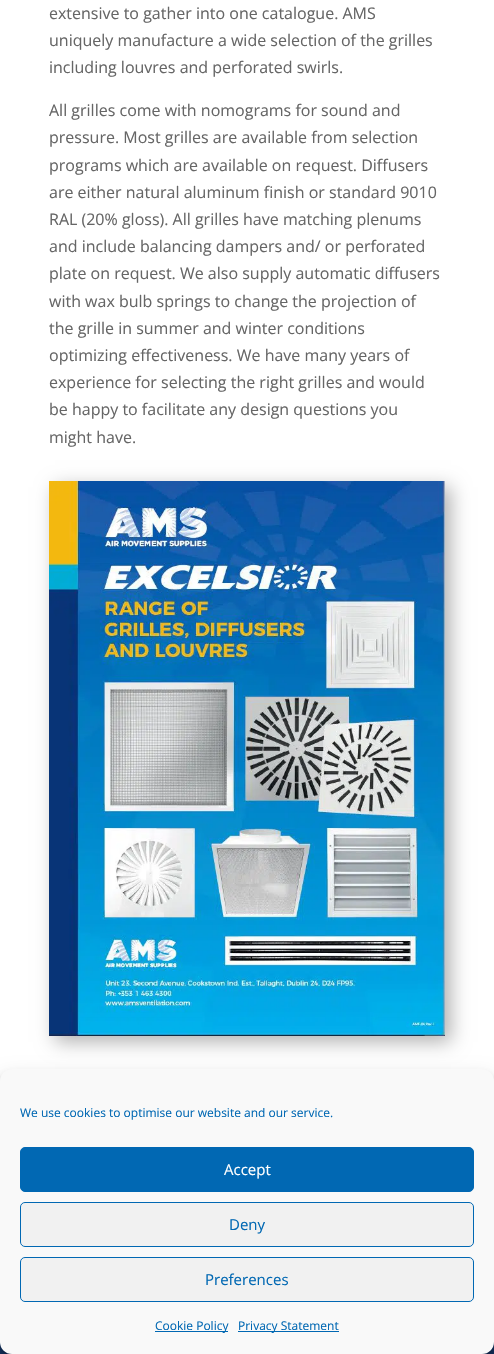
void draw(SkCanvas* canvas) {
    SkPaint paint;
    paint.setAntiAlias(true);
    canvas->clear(0xFFFFFFFF);
    SkFont font1(fontMgr->matchFamilyStyle("Open Sans", SkFontStyle::Normal()), 16);
    font1.setSubpixel(true);
    paint.setColor(0xFF666666);
    canvas->drawString("extensive to gather into one catalogue. AMS", 49, 19, font1, paint);
    canvas->drawString("uniquely manufacture a wide selection of the grilles", 49, 46, font1, paint);
    canvas->drawString("including louvres and perforated swirls.", 49, 73, font1, paint);
    canvas->drawString("All grilles come with nomograms for sound and", 49, 116, font1, paint);
    canvas->drawString("pressure. Most grilles are available from selection", 49, 143, font1, paint);
    canvas->drawString("programs which are available on request. Diffusers", 49, 171, font1, paint);
    canvas->drawString("are either natural aluminum finish or standard 9010", 49, 198, font1, paint);
    canvas->drawString("RAL (20% gloss). All grilles have matching plenums", 49, 225, font1, paint);
    canvas->drawString("and include balancing dampers and/ or perforated", 49, 252, font1, paint);
    canvas->drawString("plate on request. We also supply automatic diffusers", 49, 279, font1, paint);
    canvas->drawString("with wax bulb springs to change the projection of", 49, 307, font1, paint);
    canvas->drawString("the grille in summer and winter conditions", 49, 334, font1, paint);
    canvas->drawString("optimizing effectiveness. We have many years of", 49, 361, font1, paint);
    canvas->drawString("experience for selecting the right grilles and would", 49, 388, font1, paint);
    canvas->drawString("be happy to facilitate any design questions you", 49, 415, font1, paint);
    canvas->drawString("might have.", 49, 443, font1, paint);
    paint.setColor(0x4D000000);
    paint.setMaskFilter(SkMaskFilter::MakeBlur(kNormal_SkBlurStyle, 9));
    canvas->drawRect(SkRect::MakeXYWH(55, 487, 396, 555), paint);
    paint.setMaskFilter(nullptr);
    canvas->drawImageRect(SkImages::DeferredFromEncodedData(SkData::MakeFromFileName("img1.png")), SkRect::MakeXYWH(49, 481, 396, 555), SkSamplingOptions());
    paint.setColor(0xFF143363);
    canvas->drawRect(SkRect::MakeXYWH(0, 1342, 494, 12), paint);
    paint.setColor(0x3B000000);
    paint.setMaskFilter(SkMaskFilter::MakeBlur(kNormal_SkBlurStyle, 3));
    canvas->drawRoundRect(SkRect::MakeXYWH(0, 1075, 494, 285), 12, 12, paint);
    paint.setMaskFilter(nullptr);
    paint.setColor(0x30000000);
    paint.setMaskFilter(SkMaskFilter::MakeBlur(kNormal_SkBlurStyle, 10));
    canvas->drawRoundRect(SkRect::MakeXYWH(0, 1079, 494, 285), 12, 12, paint);
    paint.setMaskFilter(nullptr);
    paint.setColor(0xFFF9F9F9);
    canvas->drawRoundRect(SkRect::MakeXYWH(0, 1069, 494, 285), 12, 12, paint);
    SkFont font2(fontMgr->matchFamilyStyle("Open Sans", SkFontStyle::Normal()), 12);
    font2.setSubpixel(true);
    paint.setColor(0xFF0168B3);
    canvas->drawString("We use cookies to optimise our website and our service.", 20, 1117, font2, paint);
    canvas->drawRoundRect(SkRect::MakeXYWH(20.5f, 1147.5f, 453, 44), 4.5f, 4.5f, paint);
    paint.setStyle(SkPaint::kStroke_Style);
    paint.setStrokeWidth(1);
    canvas->drawRoundRect(SkRect::MakeXYWH(20.5f, 1147.5f, 453, 44), 4.5f, 4.5f, paint);
    SkFont font3(fontMgr->matchFamilyStyle("Open Sans", SkFontStyle::Normal()), 15);
    font3.setSubpixel(true);
    paint.setStyle(SkPaint::kFill_Style);
    paint.setColor(0xFFFFFFFF);
    canvas->drawString("Accept", 224, 1175, font3, paint);
    paint.setColor(0xFFF1F1F1);
    canvas->drawRoundRect(SkRect::MakeXYWH(20.5f, 1202.5f, 453, 44), 4.5f, 4.5f, paint);
    paint.setStyle(SkPaint::kStroke_Style);
    paint.setColor(0xFF0168B3);
    canvas->drawRoundRect(SkRect::MakeXYWH(20.5f, 1202.5f, 453, 44), 4.5f, 4.5f, paint);
    paint.setStyle(SkPaint::kFill_Style);
    canvas->drawString("Deny", 229, 1230, font3, paint);
    paint.setColor(0xFFF1F1F1);
    canvas->drawRoundRect(SkRect::MakeXYWH(20.5f, 1257.5f, 453, 44), 4.5f, 4.5f, paint);
    paint.setStyle(SkPaint::kStroke_Style);
    paint.setColor(0xFF0168B3);
    canvas->drawRoundRect(SkRect::MakeXYWH(20.5f, 1257.5f, 453, 44), 4.5f, 4.5f, paint);
    paint.setStyle(SkPaint::kFill_Style);
    canvas->drawString("Preferences", 205, 1285, font3, paint);
    canvas->drawRect(SkRect::MakeXYWH(155, 1331, 73, 1), paint);
    canvas->drawString("Cookie Policy", 155, 1330, font2, paint);
    canvas->drawRect(SkRect::MakeXYWH(238, 1331, 101, 1), paint);
    canvas->drawString("Privacy Statement", 238, 1330, font2, paint);
}
